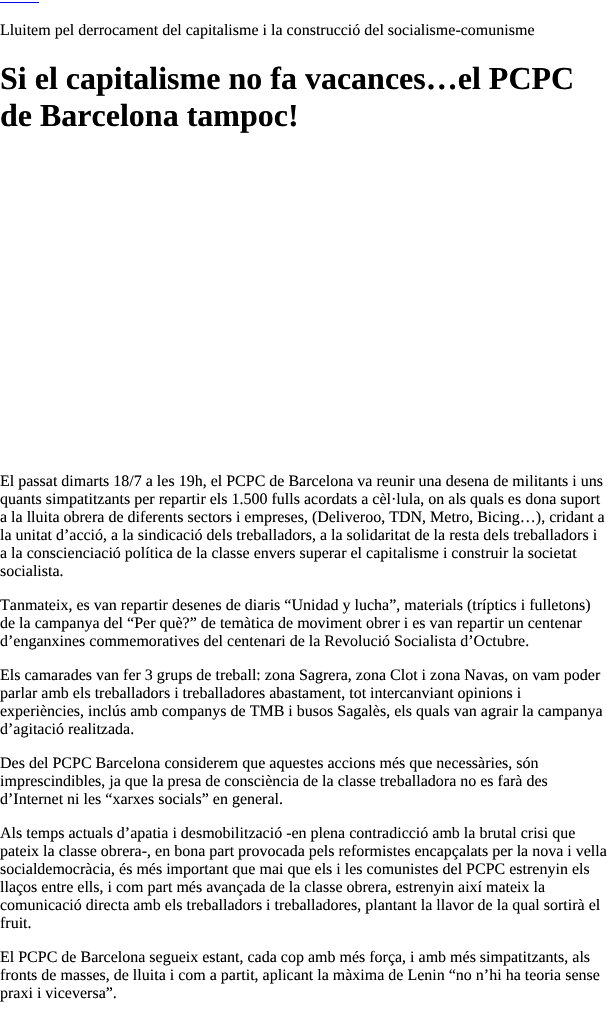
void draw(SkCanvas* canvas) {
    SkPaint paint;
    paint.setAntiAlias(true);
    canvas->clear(0xFFFFFFFF);
    paint.setColor(0xFF0000EE);
    canvas->drawRect(SkRect::MakeXYWH(0, 2, 39, 1), paint);
    SkFont font1(fontMgr->matchFamilyStyle("Liberation Serif", SkFontStyle::Normal()), 16);
    font1.setSubpixel(true);
    paint.setColor(0xFF000000);
    canvas->drawString("Lluitem pel derrocament del capitalisme i la construcció del socialisme-comunisme", 0, 35, font1, paint);
    SkFont font2(fontMgr->matchFamilyStyle("Liberation Serif", SkFontStyle::Bold()), 32);
    font2.setSubpixel(true);
    canvas->drawString("Si el capitalisme no fa vacances…el PCPC", 0, 89, font2, paint);
    canvas->drawString("de Barcelona tampoc!", 0, 126, font2, paint);
    canvas->drawString("El passat dimarts 18/7 a les 19h, el PCPC de Barcelona va reunir una desena de militants i uns", 0, 486, font1, paint);
    canvas->drawString("quants simpatitzants per repartir els 1.500 fulls acordats a cèl·lula, on als quals es dona suport", 0, 504, font1, paint);
    canvas->drawString("a la lluita obrera de diferents sectors i empreses, (Deliveroo, TDN, Metro, Bicing…), cridant a", 0, 522, font1, paint);
    canvas->drawString("la unitat d’acció, a la sindicació dels treballadors, a la solidaritat de la resta dels treballadors i", 0, 540, font1, paint);
    canvas->drawString("a la conscienciació política de la classe envers superar el capitalisme i construir la societat", 0, 558, font1, paint);
    canvas->drawString("socialista.", 0, 576, font1, paint);
    canvas->drawString("Tanmateix, es van repartir desenes de diaris “Unidad y lucha”, materials (tríptics i fulletons)", 0, 610, font1, paint);
    canvas->drawString("de la campanya del “Per què?” de temàtica de moviment obrer i es van repartir un centenar", 0, 628, font1, paint);
    canvas->drawString("d’enganxines commemoratives del centenari de la Revolució Socialista d’Octubre.", 0, 646, font1, paint);
    canvas->drawString("Els camarades van fer 3 grups de treball: zona Sagrera, zona Clot i zona Navas, on vam poder", 0, 680, font1, paint);
    canvas->drawString("parlar amb els treballadors i treballadores abastament, tot intercanviant opinions i", 0, 698, font1, paint);
    canvas->drawString("experiències, inclús amb companys de TMB i busos Sagalès, els quals van agrair la campanya", 0, 716, font1, paint);
    canvas->drawString("d’agitació realitzada.", 0, 734, font1, paint);
    canvas->drawString("Des del PCPC Barcelona considerem que aquestes accions més que necessàries, són", 0, 768, font1, paint);
    canvas->drawString("imprescindibles, ja que la presa de consciència de la classe treballadora no es farà des", 0, 786, font1, paint);
    canvas->drawString("d’Internet ni les “xarxes socials” en general.", 0, 804, font1, paint);
    canvas->drawString("Als temps actuals d’apatia i desmobilització -en plena contradicció amb la brutal crisi que", 0, 838, font1, paint);
    canvas->drawString("pateix la classe obrera-, en bona part provocada pels reformistes encapçalats per la nova i vella", 0, 856, font1, paint);
    canvas->drawString("socialdemocràcia, és més important que mai que els i les comunistes del PCPC estrenyin els", 0, 874, font1, paint);
    canvas->drawString("llaços entre ells, i com part més avançada de la classe obrera, estrenyin així mateix la", 0, 892, font1, paint);
    canvas->drawString("comunicació directa amb els treballadors i treballadores, plantant la llavor de la qual sortirà el", 0, 910, font1, paint);
    canvas->drawString("fruit.", 0, 928, font1, paint);
    canvas->drawString("El PCPC de Barcelona segueix estant, cada cop amb més força, i amb més simpatitzants, als", 0, 962, font1, paint);
    canvas->drawString("fronts de masses, de lluita i com a partit, aplicant la màxima de Lenin “no n’hi ha teoria sense", 0, 980, font1, paint);
    canvas->drawString("praxi i viceversa”.", 0, 998, font1, paint);
}
